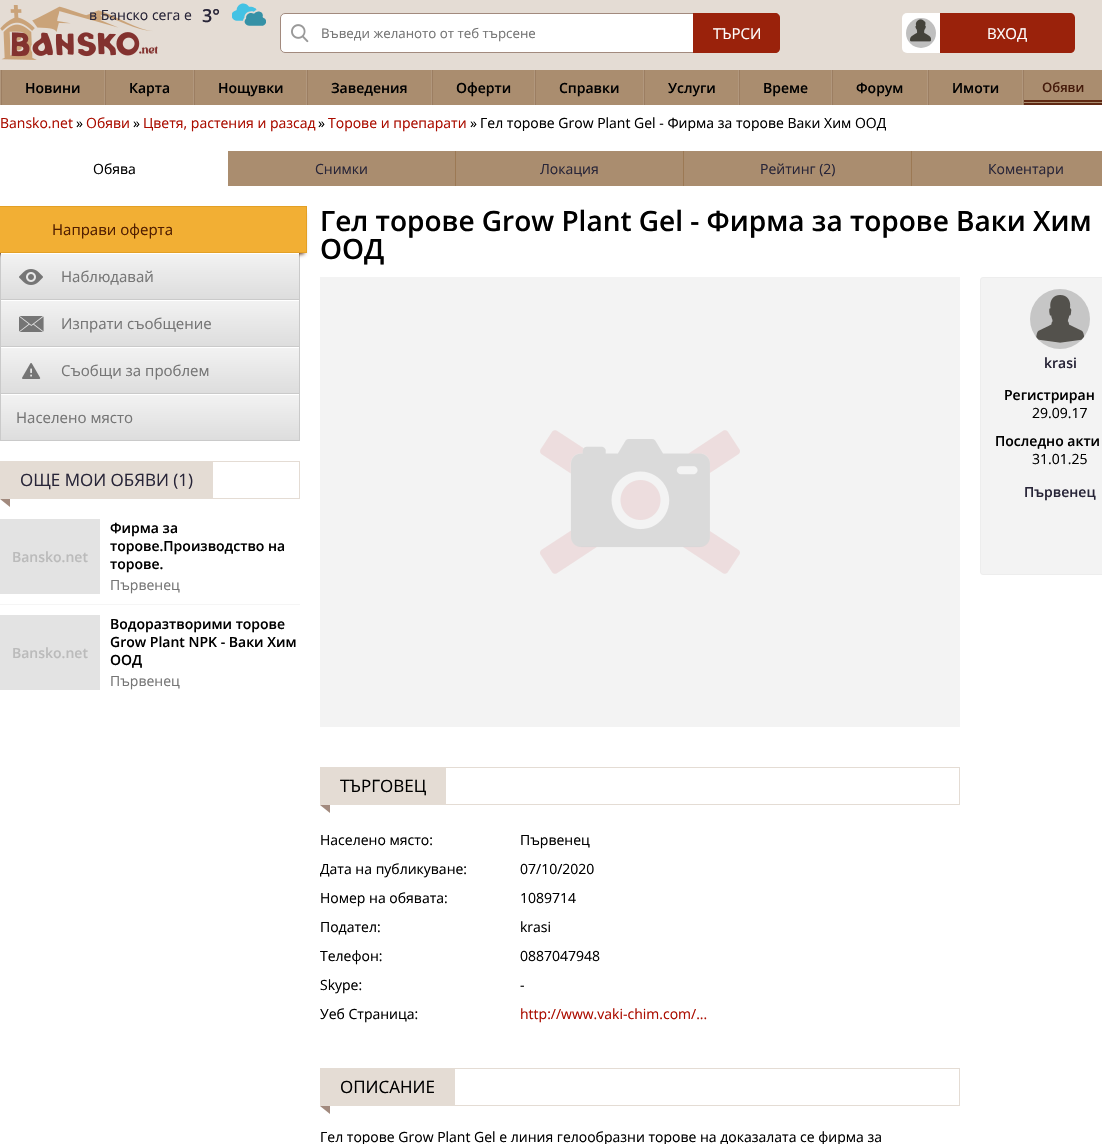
void draw(SkCanvas* canvas) {
    SkPaint paint;
    paint.setAntiAlias(true);
    canvas->clear(0xFFFFFFFF);
    paint.setColor(0xFFE4DCD4);
    canvas->drawRect(SkRect::MakeXYWH(0, 0, 1102, 70), paint);
    canvas->drawImageRect(SkImages::DeferredFromEncodedData(SkData::MakeFromFileName("img1.png")), SkRect::MakeXYWH(0, 5, 158, 55), SkSamplingOptions());
    SkFont font1(fontMgr->matchFamilyStyle("Open Sans", SkFontStyle::Normal()), 14);
    font1.setSubpixel(true);
    paint.setColor(0xFF282538);
    canvas->drawString("в Банско сега е", 89, 20, font1, paint);
    SkFont font2(fontMgr->matchFamilyStyle("Open Sans", SkFontStyle(600, SkFontStyle::kNormal_Width, SkFontStyle::kUpright_Slant)), 18);
    font2.setSubpixel(true);
    canvas->drawString("3°", 202, 22, font2, paint);
    canvas->drawImageRect(SkImages::DeferredFromEncodedData(SkData::MakeFromFileName("img2.png")), SkRect::MakeXYWH(232, 3, 34, 23), SkSamplingOptions());
    paint.setColor(0xFFFFFFFF);
    canvas->drawRoundRect(SkRect::MakeXYWH(280.5f, 13.5f, 499, 39), 4.5f, 4.5f, paint);
    paint.setStyle(SkPaint::kStroke_Style);
    paint.setStrokeWidth(1);
    paint.setColor(0xFFA28A7E);
    canvas->drawRoundRect(SkRect::MakeXYWH(280.5f, 13.5f, 499, 39), 4.5f, 4.5f, paint);
    canvas->drawImageRect(SkImages::DeferredFromEncodedData(SkData::MakeFromFileName("img3.png")), SkRect::MakeXYWH(291, 24, 18, 19), SkSamplingOptions());
    SkFont font3(fontMgr->matchFamilyStyle("Open Sans", SkFontStyle::Normal()), 13.3f);
    font3.setSubpixel(true);
    paint.setStyle(SkPaint::kFill_Style);
    paint.setColor(0xFF757575);
    canvas->drawString("Въведи желаното от теб търсене", 321, 38, font3, paint);
    paint.setColor(0xFF9A220B);
    canvas->drawPath(SkPathBuilder().moveTo(693, 13).lineTo(775, 13).cubicTo(778, 13, 780, 15, 780, 18).lineTo(780, 48).cubicTo(780, 51, 778, 53, 775, 53).lineTo(693, 53).close().detach(), paint);
    SkFont font4(fontMgr->matchFamilyStyle("Open Sans", SkFontStyle::Normal()), 15);
    font4.setSubpixel(true);
    paint.setColor(0xFFFFFFFF);
    canvas->drawString("ТЪРСИ", 713, 39, font4, paint);
    canvas->drawRoundRect(SkRect::MakeXYWH(902, 13, 173, 40), 5, 5, paint);
    paint.setColor(0xFFBFBFBF);
    canvas->drawCircle(921, 33, 15, paint);
    canvas->drawImageRect(SkImages::DeferredFromEncodedData(SkData::MakeFromFileName("img4.png")), SkRect::MakeXYWH(910, 19, 21, 23), SkSamplingOptions());
    paint.setColor(0xFF9A220B);
    canvas->drawPath(SkPathBuilder().moveTo(940, 13).lineTo(1070, 13).cubicTo(1073, 13, 1075, 15, 1075, 18).lineTo(1075, 48).cubicTo(1075, 51, 1073, 53, 1070, 53).lineTo(940, 53).close().detach(), paint);
    paint.setColor(0xFFFFFFFF);
    canvas->drawString("ВХОД", 987, 39, font4, paint);
    paint.setColor(0xFFAA8D6F);
    canvas->drawRect(SkRect::MakeXYWH(2, 70, 1100, 35), paint);
    paint.setColor(0xFFB1977D);
    canvas->drawRect(SkRect::MakeXYWH(0, 70, 1, 35), paint);
    canvas->drawRect(SkRect::MakeXYWH(104, 70, 1, 35), paint);
    paint.setColor(0xFF9C7E62);
    canvas->drawRect(SkRect::MakeXYWH(1, 70, 1, 35), paint);
    SkFont font5(fontMgr->matchFamilyStyle("Open Sans", SkFontStyle(600, SkFontStyle::kNormal_Width, SkFontStyle::kUpright_Slant)), 14);
    font5.setSubpixel(true);
    paint.setColor(0xFF000000);
    canvas->drawString("Новини", 25, 93, font5, paint);
    paint.setColor(0xFFB1977D);
    canvas->drawRect(SkRect::MakeXYWH(193, 70, 1, 35), paint);
    paint.setColor(0xFF9C7E62);
    canvas->drawRect(SkRect::MakeXYWH(105, 70, 1, 35), paint);
    paint.setColor(0xFF000000);
    canvas->drawString("Карта", 129, 93, font5, paint);
    paint.setColor(0xFFB1977D);
    canvas->drawRect(SkRect::MakeXYWH(306, 70, 1, 35), paint);
    paint.setColor(0xFF9C7E62);
    canvas->drawRect(SkRect::MakeXYWH(194, 70, 1, 35), paint);
    paint.setColor(0xFF000000);
    canvas->drawString("Нощувки", 218, 93, font5, paint);
    paint.setColor(0xFFB1977D);
    canvas->drawRect(SkRect::MakeXYWH(431, 70, 1, 35), paint);
    paint.setColor(0xFF9C7E62);
    canvas->drawRect(SkRect::MakeXYWH(307, 70, 1, 35), paint);
    paint.setColor(0xFF000000);
    canvas->drawString("Заведения", 331, 93, font5, paint);
    paint.setColor(0xFFB1977D);
    canvas->drawRect(SkRect::MakeXYWH(534, 70, 1, 35), paint);
    paint.setColor(0xFF9C7E62);
    canvas->drawRect(SkRect::MakeXYWH(432, 70, 1, 35), paint);
    paint.setColor(0xFF000000);
    canvas->drawString("Оферти", 456, 93, font5, paint);
    paint.setColor(0xFFB1977D);
    canvas->drawRect(SkRect::MakeXYWH(643, 70, 1, 35), paint);
    paint.setColor(0xFF9C7E62);
    canvas->drawRect(SkRect::MakeXYWH(535, 70, 1, 35), paint);
    paint.setColor(0xFF000000);
    canvas->drawString("Справки", 559, 93, font5, paint);
    paint.setColor(0xFFB1977D);
    canvas->drawRect(SkRect::MakeXYWH(738, 70, 1, 35), paint);
    paint.setColor(0xFF9C7E62);
    canvas->drawRect(SkRect::MakeXYWH(644, 70, 1, 35), paint);
    paint.setColor(0xFF000000);
    canvas->drawString("Услуги", 668, 93, font5, paint);
    paint.setColor(0xFFB1977D);
    canvas->drawRect(SkRect::MakeXYWH(831, 70, 1, 35), paint);
    paint.setColor(0xFF9C7E62);
    canvas->drawRect(SkRect::MakeXYWH(739, 70, 1, 35), paint);
    paint.setColor(0xFF000000);
    canvas->drawString("Време", 763, 93, font5, paint);
    paint.setColor(0xFFB1977D);
    canvas->drawRect(SkRect::MakeXYWH(927, 70, 1, 35), paint);
    paint.setColor(0xFF9C7E62);
    canvas->drawRect(SkRect::MakeXYWH(832, 70, 1, 35), paint);
    paint.setColor(0xFF000000);
    canvas->drawString("Форум", 856, 93, font5, paint);
    paint.setColor(0xFFB1977D);
    canvas->drawRect(SkRect::MakeXYWH(1022, 70, 1, 35), paint);
    paint.setColor(0xFF9C7E62);
    canvas->drawRect(SkRect::MakeXYWH(928, 70, 1, 35), paint);
    paint.setColor(0xFF000000);
    canvas->drawString("Имоти", 952, 93, font5, paint);
    paint.setColor(0xFF9C7E62);
    canvas->drawRect(SkRect::MakeXYWH(1023, 70, 1, 35), paint);
    SkFont font6(fontMgr->matchFamilyStyle("Open Sans", SkFontStyle(600, SkFontStyle::kNormal_Width, SkFontStyle::kUpright_Slant)), 13);
    font6.setSubpixel(true);
    paint.setColor(0xFF451B0B);
    canvas->drawString("Обяви", 1042, 92, font6, paint);
    paint.setColor(0xFF602913);
    canvas->drawRect(SkRect::MakeXYWH(1024, 100, 78, 2), paint);
    canvas->drawRect(SkRect::MakeXYWH(1024, 103, 78, 2), paint);
    paint.setColor(0xFFAB0D00);
    canvas->drawString("Bansko.net", 0, 128, font1, paint);
    paint.setColor(0xFF000000);
    canvas->drawString("»", 76, 128, font1, paint);
    paint.setColor(0xFFAB0D00);
    canvas->drawString("Обяви", 86, 128, font1, paint);
    paint.setColor(0xFF000000);
    canvas->drawString("»", 133, 128, font1, paint);
    paint.setColor(0xFFAB0D00);
    canvas->drawString("Цветя, растения и разсад", 143, 128, font1, paint);
    paint.setColor(0xFF000000);
    canvas->drawString("»", 318, 128, font1, paint);
    paint.setColor(0xFFAB0D00);
    canvas->drawString("Торове и препарати", 328, 128, font1, paint);
    paint.setColor(0xFF000000);
    canvas->drawString("»", 470, 128, font1, paint);
    canvas->save();
    canvas->clipRect(SkRect::MakeXYWH(480, 115, 406, 16));
    canvas->drawString("Гел торове Grow Plant Gel - Фирма за торове Ваки Хим ООД", 480, 128, font1, paint);
    canvas->restore();
    canvas->drawString("Обява", 93, 174, font1, paint);
    paint.setColor(0xFFAA8D6F);
    canvas->drawRect(SkRect::MakeXYWH(228, 151, 227, 35), paint);
    paint.setColor(0xFF9C7954);
    canvas->drawRect(SkRect::MakeXYWH(455, 151, 1, 35), paint);
    paint.setColor(0xFF282538);
    canvas->drawString("Снимки", 315, 174, font1, paint);
    paint.setColor(0xFFAA8D6F);
    canvas->drawRect(SkRect::MakeXYWH(456, 151, 227, 35), paint);
    paint.setColor(0xFF9C7954);
    canvas->drawRect(SkRect::MakeXYWH(683, 151, 1, 35), paint);
    paint.setColor(0xFF282538);
    canvas->drawString("Локация", 540, 174, font1, paint);
    paint.setColor(0xFFAA8D6F);
    canvas->drawRect(SkRect::MakeXYWH(684, 151, 227, 35), paint);
    paint.setColor(0xFF9C7954);
    canvas->drawRect(SkRect::MakeXYWH(911, 151, 1, 35), paint);
    paint.setColor(0xFF282538);
    canvas->drawString("Рейтинг (2)", 760, 174, font1, paint);
    paint.setColor(0xFFAA8D6F);
    canvas->drawRect(SkRect::MakeXYWH(912, 151, 190, 35), paint);
    paint.setColor(0xFF282538);
    canvas->drawString("Коментари", 988, 174, font1, paint);
    paint.setColor(0xFFCACACA);
    canvas->drawRect(SkRect::MakeXYWH(299, 253, 1, 188), paint);
    canvas->drawRect(SkRect::MakeXYWH(0, 253, 1, 188), paint);
    paint.setColor(0xFF511E00);
    paint.setMaskFilter(SkMaskFilter::MakeBlur(kNormal_SkBlurStyle, 2));
    canvas->drawRect(SkRect::MakeXYWH(-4, 213, 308, 41), paint);
    paint.setMaskFilter(nullptr);
    paint.setColor(0xFFF2AF34);
    canvas->drawRect(SkRect::MakeXYWH(-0.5f, 206.5f, 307, 46), paint);
    paint.setStyle(SkPaint::kStroke_Style);
    paint.setColor(0xFFE3A025);
    canvas->drawRect(SkRect::MakeXYWH(-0.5f, 206.5f, 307, 46), paint);
    paint.setStyle(SkPaint::kFill_Style);
    paint.setColor(0xFF511E00);
    canvas->drawString("Направи оферта", 52, 235, font4, paint);
    {
        const SkColor colors[] = {0xFFF2F2F2, 0xFFDDDDDD};
        const float stops[] = {0, 1};
        const SkPoint ends[] = {{150, 254}, {150, 299}};
        paint.setShader(SkGradientShader::MakeLinear(ends, colors, stops, 2, SkTileMode::kClamp));
        paint.setAlpha(255);
    }
    canvas->drawRect(SkRect::MakeXYWH(1, 254, 298, 45), paint);
    paint.setShader(nullptr);
    paint.setColor(0xFFFFFFFF);
    canvas->drawRect(SkRect::MakeXYWH(1, 253, 298, 1), paint);
    paint.setColor(0xFFCACACA);
    canvas->drawRect(SkRect::MakeXYWH(1, 299, 298, 1), paint);
    canvas->drawImageRect(SkImages::DeferredFromEncodedData(SkData::MakeFromFileName("img5.png")), SkRect::MakeXYWH(19, 269, 24, 16), SkSamplingOptions());
    paint.setColor(0xFF757575);
    canvas->drawString("Наблюдавай", 61, 282, font4, paint);
    {
        const SkColor colors[] = {0xFFF2F2F2, 0xFFDDDDDD};
        const float stops[] = {0, 1};
        const SkPoint ends[] = {{150, 301}, {150, 346}};
        paint.setShader(SkGradientShader::MakeLinear(ends, colors, stops, 2, SkTileMode::kClamp));
        paint.setAlpha(255);
    }
    canvas->drawRect(SkRect::MakeXYWH(1, 301, 298, 45), paint);
    paint.setShader(nullptr);
    paint.setColor(0xFFCACACA);
    canvas->drawRect(SkRect::MakeXYWH(1, 346, 298, 1), paint);
    canvas->drawImageRect(SkImages::DeferredFromEncodedData(SkData::MakeFromFileName("img6.png")), SkRect::MakeXYWH(19, 316, 25, 16), SkSamplingOptions());
    paint.setColor(0xFF757575);
    canvas->drawString("Изпрати съобщение", 61, 329, font4, paint);
    {
        const SkColor colors[] = {0xFFF2F2F2, 0xFFDDDDDD};
        const float stops[] = {0, 1};
        const SkPoint ends[] = {{150, 348}, {150, 393}};
        paint.setShader(SkGradientShader::MakeLinear(ends, colors, stops, 2, SkTileMode::kClamp));
        paint.setAlpha(255);
    }
    canvas->drawRect(SkRect::MakeXYWH(1, 348, 298, 45), paint);
    paint.setShader(nullptr);
    paint.setColor(0xFFCACACA);
    canvas->drawRect(SkRect::MakeXYWH(1, 393, 298, 1), paint);
    canvas->drawImageRect(SkImages::DeferredFromEncodedData(SkData::MakeFromFileName("img7.png")), SkRect::MakeXYWH(22, 363, 19, 16), SkSamplingOptions());
    paint.setColor(0xFF757575);
    canvas->drawString("Съобщи за проблем", 61, 376, font4, paint);
    {
        const SkColor colors[] = {0xFFF2F2F2, 0xFFDDDDDD};
        const float stops[] = {0, 1};
        const SkPoint ends[] = {{150, 395}, {150, 440}};
        paint.setShader(SkGradientShader::MakeLinear(ends, colors, stops, 2, SkTileMode::kClamp));
        paint.setAlpha(255);
    }
    canvas->drawRect(SkRect::MakeXYWH(1, 395, 298, 45), paint);
    paint.setShader(nullptr);
    paint.setColor(0xFFCACACA);
    canvas->drawRect(SkRect::MakeXYWH(1, 440, 298, 1), paint);
    paint.setColor(0xFF757575);
    canvas->drawString("Населено място", 16, 423, font4, paint);
    paint.setStyle(SkPaint::kStroke_Style);
    paint.setColor(0xFFE4DCD4);
    canvas->drawRect(SkRect::MakeXYWH(0.5f, 461.5f, 299, 37), paint);
    paint.setStyle(SkPaint::kFill_Style);
    canvas->drawRect(SkRect::MakeXYWH(1, 462, 212, 36), paint);
    SkFont font7(fontMgr->matchFamilyStyle("Open Sans", SkFontStyle::Normal()), 17);
    font7.setSubpixel(true);
    paint.setColor(0xFF282538);
    canvas->drawString("ОЩЕ МОИ ОБЯВИ (1)", 20, 486, font7, paint);
    paint.setColor(0xFFA28A7E);
    canvas->drawPath(SkPathBuilder().moveTo(10, 499).lineTo(10, 507).lineTo(0, 499).close().detach(), paint);
    paint.setColor(0xFFF5F5F5);
    canvas->drawRect(SkRect::MakeXYWH(0, 604, 300, 1), paint);
    paint.setColor(0xFFE3E3E3);
    canvas->drawRect(SkRect::MakeXYWH(0, 519, 100, 75), paint);
    paint.setColor(0xFFBBBBBB);
    canvas->drawString("Bansko.net", 12, 562, font5, paint);
    paint.setColor(0xFF000000);
    canvas->drawString("Фирма за", 110, 533, font5, paint);
    canvas->drawString("торовe.Производство на", 110, 551, font5, paint);
    canvas->drawString("торове.", 110, 569, font5, paint);
    paint.setColor(0xFF757575);
    canvas->drawString("Първенец", 110, 590, font1, paint);
    paint.setColor(0xFFE3E3E3);
    canvas->drawRect(SkRect::MakeXYWH(0, 615, 100, 75), paint);
    paint.setColor(0xFFBBBBBB);
    canvas->drawString("Bansko.net", 12, 658, font5, paint);
    paint.setColor(0xFF000000);
    canvas->drawString("Водоразтворими торове", 110, 629, font5, paint);
    canvas->drawString("Grow Plant NPK - Ваки Хим", 110, 647, font5, paint);
    canvas->drawString("ООД", 110, 665, font5, paint);
    paint.setColor(0xFF757575);
    canvas->drawString("Първенец", 110, 686, font1, paint);
    SkFont font8(fontMgr->matchFamilyStyle("Open Sans", SkFontStyle(600, SkFontStyle::kNormal_Width, SkFontStyle::kUpright_Slant)), 28);
    font8.setSubpixel(true);
    paint.setColor(0xFF000000);
    canvas->drawString("Гел торове Grow Plant Gel - Фирма за торове Ваки Хим", 320, 231, font8, paint);
    canvas->drawString("ООД", 320, 259, font8, paint);
    paint.setColor(0xFFF3F3F3);
    canvas->drawRoundRect(SkRect::MakeXYWH(980.5f, 277.5f, 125, 297), 2.5f, 2.5f, paint);
    paint.setStyle(SkPaint::kStroke_Style);
    paint.setColor(0xFFEDEDED);
    canvas->drawRoundRect(SkRect::MakeXYWH(980.5f, 277.5f, 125, 297), 2.5f, 2.5f, paint);
    canvas->drawImageRect(SkImages::DeferredFromEncodedData(SkData::MakeFromFileName("img8.png")), SkRect::MakeXYWH(1030, 289, 60, 60), SkSamplingOptions());
    paint.setStyle(SkPaint::kFill_Style);
    paint.setColor(0xFF282538);
    canvas->drawString("krasi", 1044, 368, font5, paint);
    paint.setColor(0xFF000000);
    canvas->drawString("Регистриран", 1004, 400, font5, paint);
    canvas->drawString("29.09.17", 1032, 418, font1, paint);
    canvas->drawString("Последно акти", 995, 446, font5, paint);
    canvas->drawString("31.01.25", 1032, 464, font1, paint);
    paint.setColor(0xFF282538);
    canvas->drawString("Първенец", 1024, 497, font5, paint);
    paint.setColor(0xFFF3F3F3);
    canvas->drawRect(SkRect::MakeXYWH(320, 277, 640, 450), paint);
    canvas->drawImageRect(SkImages::DeferredFromEncodedData(SkData::MakeFromFileName("img9.png")), SkRect::MakeXYWH(540, 430, 200, 144), SkSamplingOptions());
    paint.setStyle(SkPaint::kStroke_Style);
    paint.setColor(0xFFE4DCD4);
    canvas->drawRect(SkRect::MakeXYWH(320.5f, 767.5f, 639, 37), paint);
    paint.setStyle(SkPaint::kFill_Style);
    canvas->drawRect(SkRect::MakeXYWH(321, 768, 125, 36), paint);
    paint.setColor(0xFF000000);
    canvas->drawString("ТЪРГОВЕЦ", 340, 792, font7, paint);
    paint.setColor(0xFFA28A7E);
    canvas->drawPath(SkPathBuilder().moveTo(330, 805).lineTo(330, 813).lineTo(320, 805).close().detach(), paint);
    paint.setColor(0xFF000000);
    canvas->drawString("Населено място:", 320, 845, font1, paint);
    canvas->drawString("Първенец", 520, 845, font1, paint);
    canvas->drawString("Дата на публикуване:", 320, 874, font1, paint);
    canvas->drawString("07/10/2020", 520, 874, font1, paint);
    canvas->drawString("Номер на обявата:", 320, 903, font1, paint);
    canvas->drawString("1089714", 520, 903, font1, paint);
    canvas->drawString("Подател:", 320, 932, font1, paint);
    canvas->drawString("krasi", 520, 932, font1, paint);
    canvas->drawString("Телефон:", 320, 961, font1, paint);
    canvas->drawString("0887047948", 520, 961, font1, paint);
    canvas->drawString("Skype:", 320, 990, font1, paint);
    canvas->drawString("-", 520, 990, font1, paint);
    canvas->drawString("Уеб Страница:", 320, 1019, font1, paint);
    paint.setColor(0xFFAB0D00);
    canvas->drawString("http://www.vaki-chim.com/...", 520, 1019, font1, paint);
    paint.setStyle(SkPaint::kStroke_Style);
    paint.setColor(0xFFE4DCD4);
    canvas->drawRect(SkRect::MakeXYWH(320.5f, 1068.5f, 639, 37), paint);
    paint.setStyle(SkPaint::kFill_Style);
    canvas->drawRect(SkRect::MakeXYWH(321, 1069, 134, 36), paint);
    paint.setColor(0xFF000000);
    canvas->drawString("ОПИСАНИЕ", 340, 1093, font7, paint);
    paint.setColor(0xFFA28A7E);
    canvas->drawPath(SkPathBuilder().moveTo(330, 1106).lineTo(330, 1114).lineTo(320, 1106).close().detach(), paint);
    paint.setColor(0xFF000000);
    canvas->drawString("Гел торове Grow Plant Gel е линия гелообразни торове на доказалата се фирма за", 320, 1142, font1, paint);
}
